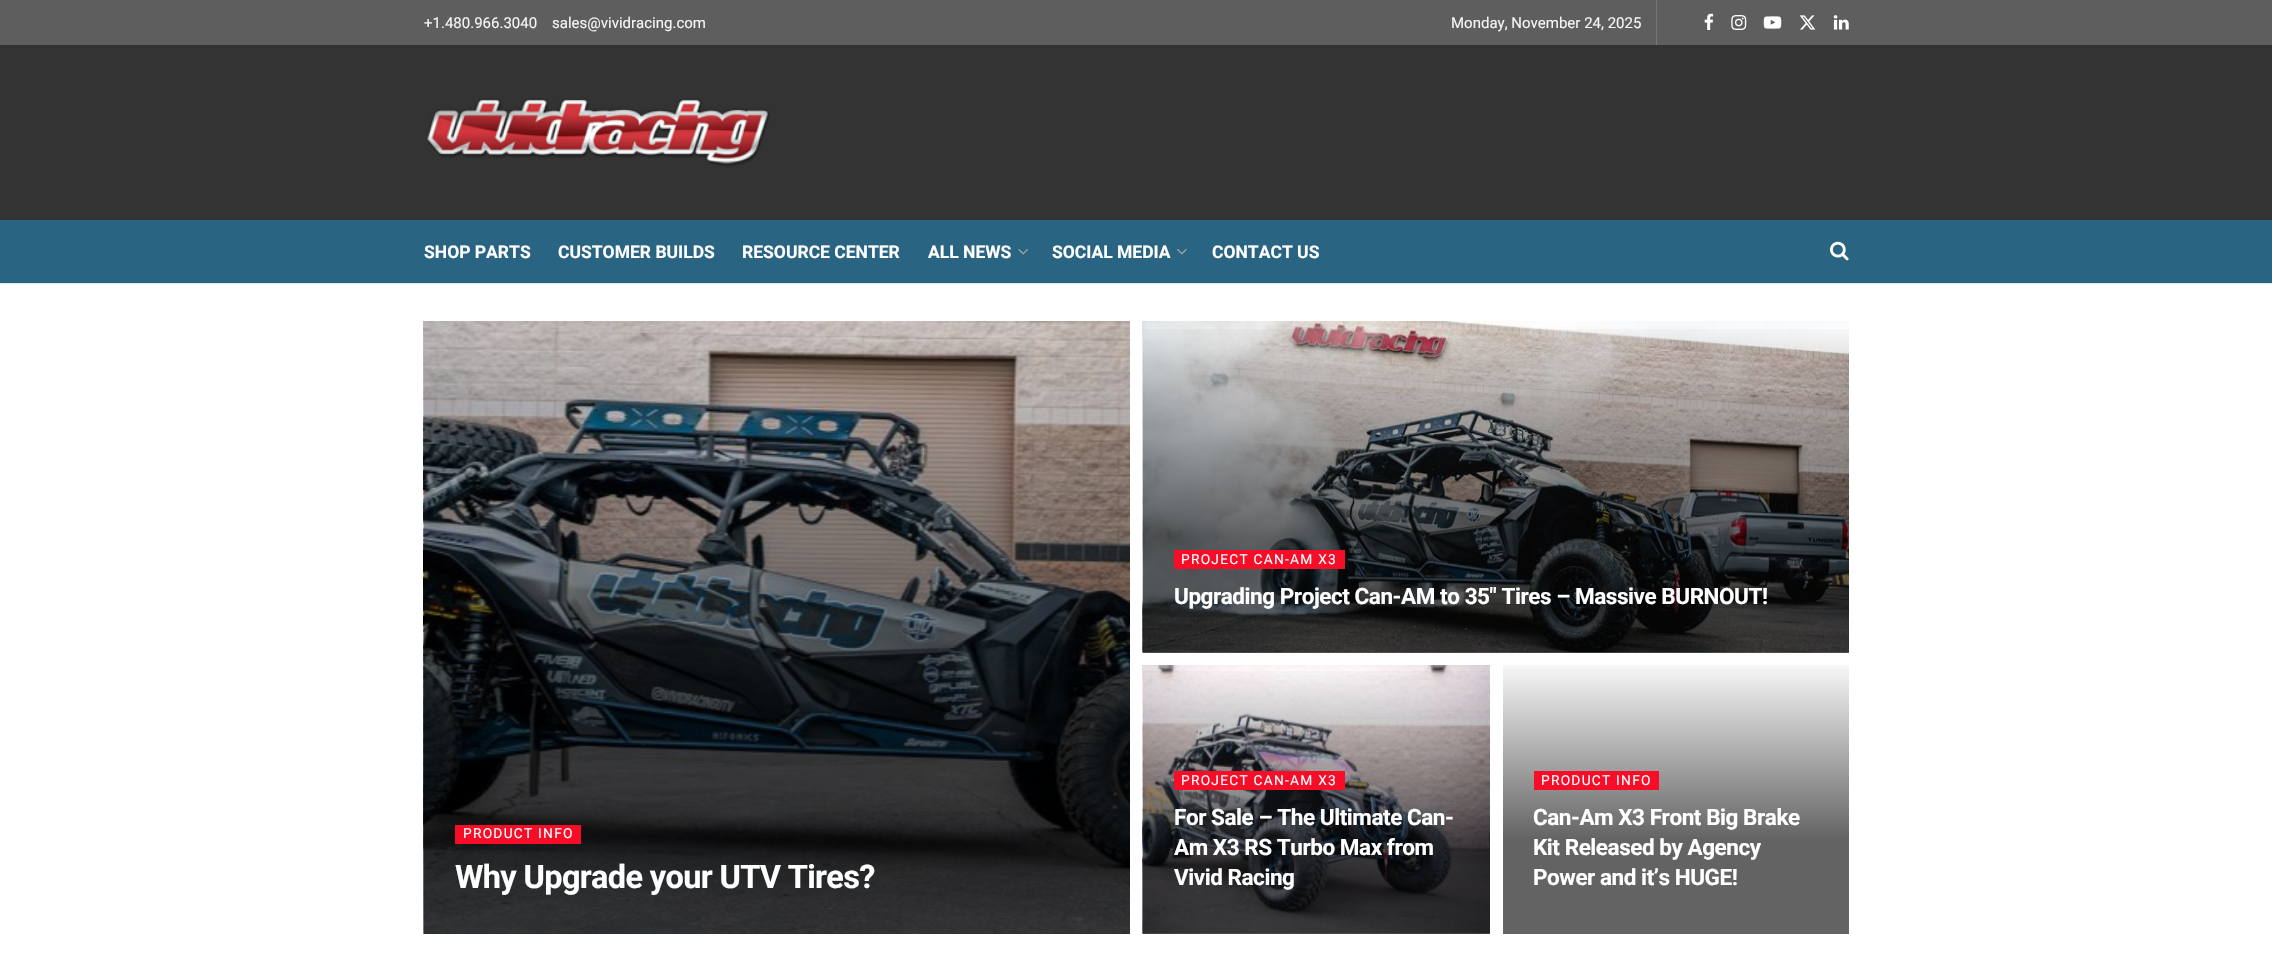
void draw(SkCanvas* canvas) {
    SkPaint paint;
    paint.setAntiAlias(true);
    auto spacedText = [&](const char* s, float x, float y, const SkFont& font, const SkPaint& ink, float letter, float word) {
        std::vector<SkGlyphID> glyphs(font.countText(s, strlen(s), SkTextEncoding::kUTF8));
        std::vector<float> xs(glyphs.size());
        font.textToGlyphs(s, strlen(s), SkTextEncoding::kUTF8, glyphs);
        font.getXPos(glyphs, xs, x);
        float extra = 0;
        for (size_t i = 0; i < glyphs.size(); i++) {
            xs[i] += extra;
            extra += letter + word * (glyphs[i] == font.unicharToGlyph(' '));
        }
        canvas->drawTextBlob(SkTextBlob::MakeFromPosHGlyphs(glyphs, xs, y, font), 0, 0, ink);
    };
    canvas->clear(0xFFFFFFFF);
    paint.setColor(0xFF5E5E5E);
    canvas->drawRect(SkRect::MakeXYWH(0, 0, 2272, 45), paint);
    SkFont font1(fontMgr->matchFamilyStyle("Roboto", SkFontStyle::Normal()), 15);
    font1.setSubpixel(true);
    paint.setColor(0xFFF5F5F5);
    canvas->drawString("+1.480.966.3040", 424, 28, font1, paint);
    canvas->drawString("sales@vividracing.com", 552, 28, font1, paint);
    paint.setColor(0xFF767676);
    canvas->drawRect(SkRect::MakeXYWH(1656, 0, 1, 45), paint);
    paint.setColor(0xFFF5F5F5);
    canvas->drawString("Monday, November 24, 2025", 1451, 28, font1, paint);
    canvas->drawImageRect(SkImages::DeferredFromEncodedData(SkData::MakeFromFileName("img1.png")), SkRect::MakeXYWH(1704, 13, 10, 17), SkSamplingOptions());
    canvas->drawImageRect(SkImages::DeferredFromEncodedData(SkData::MakeFromFileName("img2.png")), SkRect::MakeXYWH(1731, 15, 16, 15), SkSamplingOptions());
    canvas->drawImageRect(SkImages::DeferredFromEncodedData(SkData::MakeFromFileName("img3.png")), SkRect::MakeXYWH(1763, 16, 19, 13), SkSamplingOptions());
    canvas->drawImageRect(SkImages::DeferredFromEncodedData(SkData::MakeFromFileName("img4.png")), SkRect::MakeXYWH(1799, 15, 17, 15), SkSamplingOptions());
    canvas->drawImageRect(SkImages::DeferredFromEncodedData(SkData::MakeFromFileName("img5.png")), SkRect::MakeXYWH(1833, 15, 16, 15), SkSamplingOptions());
    paint.setColor(0xFF333333);
    canvas->drawRect(SkRect::MakeXYWH(0, 45, 2272, 175), paint);
    canvas->drawImageRect(SkImages::DeferredFromEncodedData(SkData::MakeFromFileName("img6.png")), SkRect::MakeXYWH(426, 98, 344, 69), SkSamplingOptions());
    paint.setColor(0xFF296583);
    canvas->drawRect(SkRect::MakeXYWH(0, 220, 2272, 63), paint);
    paint.setColor(0xFFE8E8E8);
    canvas->drawRect(SkRect::MakeXYWH(0, 283, 2272, 1), paint);
    SkFont font2(fontMgr->matchFamilyStyle("Roboto", SkFontStyle::Bold()), 17.5f);
    font2.setSubpixel(true);
    paint.setColor(0xFFFFFFFF);
    canvas->drawString("SHOP PARTS", 424, 258, font2, paint);
    canvas->drawString("CUSTOMER BUILDS", 558, 258, font2, paint);
    canvas->drawString("RESOURCE CENTER", 742, 258, font2, paint);
    canvas->drawString("ALL NEWS", 928, 258, font2, paint);
    canvas->drawImageRect(SkImages::DeferredFromEncodedData(SkData::MakeFromFileName("img7.png")), SkRect::MakeXYWH(1018, 248, 10, 7), SkSamplingOptions());
    canvas->drawString("SOCIAL MEDIA", 1052, 258, font2, paint);
    canvas->drawImageRect(SkImages::DeferredFromEncodedData(SkData::MakeFromFileName("img8.png")), SkRect::MakeXYWH(1177, 248, 10, 7), SkSamplingOptions());
    canvas->drawString("CONTACT US", 1212, 258, font2, paint);
    canvas->drawImageRect(SkImages::DeferredFromEncodedData(SkData::MakeFromFileName("img9.png")), SkRect::MakeXYWH(1830, 241, 19, 20), SkSamplingOptions());
    canvas->drawImageRect(SkImages::DeferredFromEncodedData(SkData::MakeFromFileName("img10.png")), SkRect::MakeXYWH(423, 321, 707, 613), SkSamplingOptions());
    paint.setColor(0xFFF70D28);
    canvas->drawRect(SkRect::MakeXYWH(455, 825, 126, 19), paint);
    SkFont font3(fontMgr->matchFamilyStyle("Roboto", SkFontStyle::Normal()), 13.75f);
    font3.setSubpixel(true);
    paint.setColor(0xFFFFFFFF);
    spacedText("PRODUCT INFO", 463, 838, font3, paint, 1.25f, 0);
    SkFont font4(fontMgr->matchFamilyStyle("Roboto", SkFontStyle::Bold()), 32.5f);
    font4.setSubpixel(true);
    spacedText("Why Upgrade your UTV Tires?", 455, 888, font4, paint, -0.65f, 0);
    paint.setColor(0xFFF7F7F7);
    canvas->drawRect(SkRect::MakeXYWH(1143, 652, 706, 1), paint);
    canvas->drawImageRect(SkImages::DeferredFromEncodedData(SkData::MakeFromFileName("img11.png")), SkRect::MakeXYWH(1142, 321, 707, 332), SkSamplingOptions());
    {
        const SkColor colors[] = {0x00000000, 0x99000000, 0x99000000};
        const float stops[] = {0, 0.65f, 1};
        const SkPoint ends[] = {{1477, 321}, {1477, 653}};
        paint.setShader(SkGradientShader::MakeLinear(ends, colors, stops, 3, SkTileMode::kClamp));
        paint.setAlpha(255);
    }
    canvas->drawRect(SkRect::MakeXYWH(1143, 329, 706, 324), paint);
    paint.setShader(nullptr);
    paint.setColor(0xFFF70D28);
    canvas->drawRect(SkRect::MakeXYWH(1174, 550, 171, 19), paint);
    paint.setColor(0xFFFFFFFF);
    spacedText("PROJECT CAN-AM X3", 1181, 564, font3, paint, 1.25f, 0);
    SkFont font5(fontMgr->matchFamilyStyle("Roboto", SkFontStyle::Bold()), 22.5f);
    font5.setSubpixel(true);
    spacedText("Upgrading Project Can-AM to 35″ Tires – Massive BURNOUT!", 1174, 604, font5, paint, -0.45f, 0);
    paint.setColor(0xFFF7F7F7);
    canvas->drawRect(SkRect::MakeXYWH(1143, 933, 347, 1), paint);
    canvas->drawImageRect(SkImages::DeferredFromEncodedData(SkData::MakeFromFileName("img12.png")), SkRect::MakeXYWH(1142, 665, 348, 269), SkSamplingOptions());
    {
        const SkColor colors[] = {0x00000000, 0x99000000, 0x99000000};
        const float stops[] = {0, 0.65f, 1};
        const SkPoint ends[] = {{1298, 665}, {1298, 934}};
        paint.setShader(SkGradientShader::MakeLinear(ends, colors, stops, 3, SkTileMode::kClamp));
        paint.setAlpha(255);
    }
    canvas->drawRect(SkRect::MakeXYWH(1143, 671, 347, 263), paint);
    paint.setShader(nullptr);
    paint.setColor(0xFFF70D28);
    canvas->drawRect(SkRect::MakeXYWH(1174, 771, 171, 19), paint);
    paint.setColor(0xFFFFFFFF);
    spacedText("PROJECT CAN-AM X3", 1181, 785, font3, paint, 1.25f, 0);
    spacedText("For Sale – The Ultimate Can-", 1174, 825, font5, paint, -0.45f, 0);
    spacedText("Am X3 RS Turbo Max from", 1174, 855, font5, paint, -0.45f, 0);
    spacedText("Vivid Racing", 1174, 885, font5, paint, -0.45f, 0);
    {
        const SkColor colors[] = {0xFFF7F7F7, 0xFF636363, 0xFF636363};
        const float stops[] = {0, 0.65f, 1};
        const SkPoint ends[] = {{1657, 665}, {1657, 934}};
        paint.setShader(SkGradientShader::MakeLinear(ends, colors, stops, 3, SkTileMode::kClamp));
        paint.setAlpha(255);
    }
    canvas->drawRect(SkRect::MakeXYWH(1503, 665, 346, 269), paint);
    paint.setShader(nullptr);
    paint.setColor(0xFFF70D28);
    canvas->drawRect(SkRect::MakeXYWH(1534, 771, 125, 19), paint);
    paint.setColor(0xFFFFFFFF);
    spacedText("PRODUCT INFO", 1541, 785, font3, paint, 1.25f, 0);
    spacedText("Can-Am X3 Front Big Brake", 1533, 825, font5, paint, -0.45f, 0);
    spacedText("Kit Released by Agency", 1533, 855, font5, paint, -0.45f, 0);
    spacedText("Power and it’s HUGE!", 1533, 885, font5, paint, -0.45f, 0);
}
